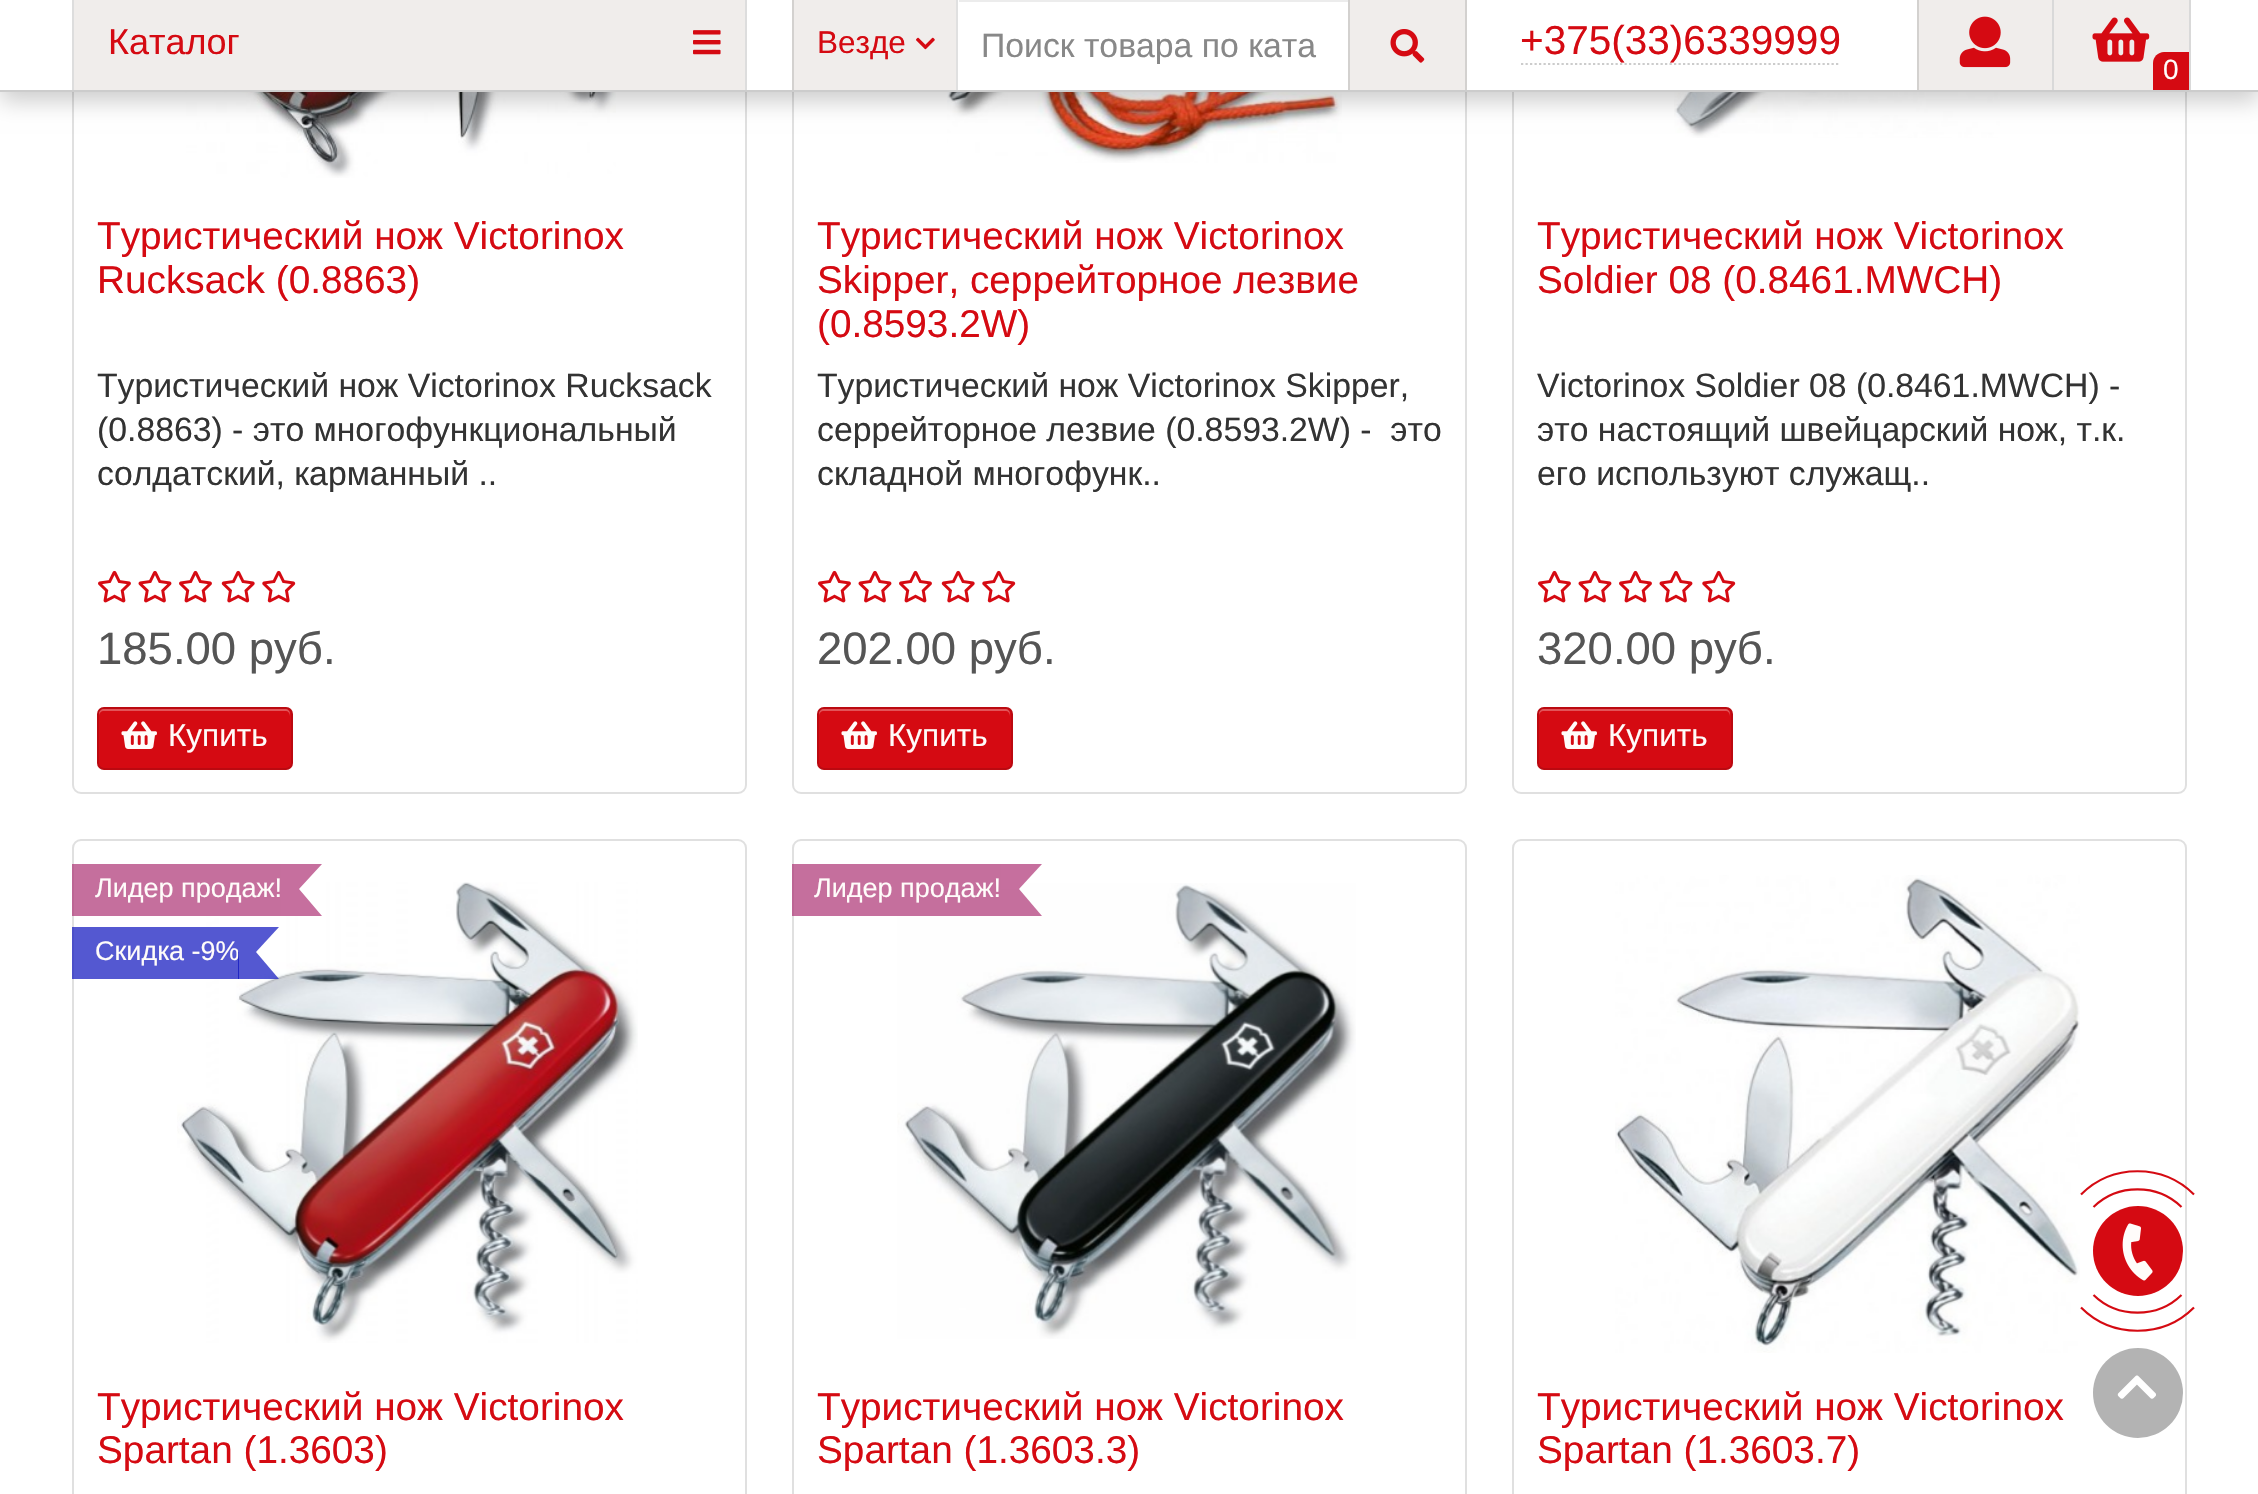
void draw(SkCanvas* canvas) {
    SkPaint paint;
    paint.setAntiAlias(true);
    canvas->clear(0xFFFFFFFF);
    paint.setStyle(SkPaint::kStroke_Style);
    paint.setStrokeWidth(2);
    paint.setColor(0xFFE0E0E0);
    canvas->drawRoundRect(SkRect::MakeXYWH(73, -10, 673, 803), 8, 8, paint);
    canvas->drawImageRect(SkImages::DeferredFromEncodedData(SkData::MakeFromFileName("img6.png")), SkRect::MakeXYWH(182, 92, 434, 86), SkSamplingOptions());
    canvas->drawRoundRect(SkRect::MakeXYWH(793, -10, 673, 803), 8, 8, paint);
    canvas->drawImageRect(SkImages::DeferredFromEncodedData(SkData::MakeFromFileName("img12.png")), SkRect::MakeXYWH(947, 92, 395, 71), SkSamplingOptions());
    canvas->drawRoundRect(SkRect::MakeXYWH(1513, -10, 673, 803), 8, 8, paint);
    canvas->drawImageRect(SkImages::DeferredFromEncodedData(SkData::MakeFromFileName("img13.png")), SkRect::MakeXYWH(1674, 92, 326, 46), SkSamplingOptions());
    paint.setStyle(SkPaint::kFill_Style);
    paint.setColor(0x33000000);
    paint.setMaskFilter(SkMaskFilter::MakeBlur(kNormal_SkBlurStyle, 11));
    canvas->drawRect(SkRect::MakeXYWH(0, 9, 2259, 92), paint);
    paint.setMaskFilter(nullptr);
    paint.setColor(0xFFFFFFFF);
    canvas->drawRect(SkRect::MakeXYWH(0, 0, 2258, 90), paint);
    paint.setColor(0xFFCCCCCC);
    canvas->drawRect(SkRect::MakeXYWH(0, 90, 2258, 2), paint);
    paint.setColor(0xFFDDDDDD);
    canvas->drawRect(SkRect::MakeXYWH(745, 0, 2, 90), paint);
    canvas->drawRect(SkRect::MakeXYWH(72, 0, 2, 90), paint);
    paint.setColor(0xFFF0EDEB);
    canvas->drawRect(SkRect::MakeXYWH(74, 0, 671, 90), paint);
    SkFont font1(fontMgr->matchFamilyStyle("Liberation Sans", SkFontStyle::Normal()), 36);
    font1.setSubpixel(true);
    paint.setColor(0xFFD50A12);
    canvas->drawString("Каталог", 108, 54, font1, paint);
    canvas->drawImageRect(SkImages::DeferredFromEncodedData(SkData::MakeFromFileName("img1.png")), SkRect::MakeXYWH(693, 30, 28, 25), SkSamplingOptions());
    paint.setColor(0xFFF0EDEB);
    canvas->drawRect(SkRect::MakeXYWH(794, 0, 162, 90), paint);
    paint.setColor(0xFFD3D1CF);
    canvas->drawRect(SkRect::MakeXYWH(792, 0, 2, 90), paint);
    SkFont font2(fontMgr->matchFamilyStyle("Liberation Sans", SkFontStyle::Normal()), 31.5f);
    font2.setSubpixel(true);
    paint.setColor(0xFFD50A12);
    canvas->drawString("Везде", 817, 53, font2, paint);
    canvas->drawImageRect(SkImages::DeferredFromEncodedData(SkData::MakeFromFileName("img2.png")), SkRect::MakeXYWH(916, 37, 19, 13), SkSamplingOptions());
    paint.setColor(0xFFECECEC);
    canvas->drawRect(SkRect::MakeXYWH(959, 0, 389, 2), paint);
    paint.setColor(0xFFE0E0E0);
    canvas->drawRect(SkRect::MakeXYWH(956, 0, 2, 90), paint);
    SkFont font3(fontMgr->matchFamilyStyle("Liberation Sans", SkFontStyle::Normal()), 33.75f);
    font3.setSubpixel(true);
    paint.setColor(0xFF888888);
    canvas->drawString("Поиск товара по ката", 981, 57, font3, paint);
    paint.setColor(0xFFF0EDEB);
    canvas->drawRect(SkRect::MakeXYWH(1350, 0, 115, 90), paint);
    paint.setColor(0xFFD3D1CF);
    canvas->drawRect(SkRect::MakeXYWH(1465, 0, 2, 90), paint);
    canvas->drawRect(SkRect::MakeXYWH(1348, 0, 2, 90), paint);
    canvas->drawImageRect(SkImages::DeferredFromEncodedData(SkData::MakeFromFileName("img3.png")), SkRect::MakeXYWH(1390, 29, 35, 34), SkSamplingOptions());
    paint.setStyle(SkPaint::kStroke_Style);
    paint.setStrokeWidth(2.2f);
    paint.setColor(0xFFCCCCCC);
    paint.setPathEffect(SkDashPathEffect::Make({{2.25f, 2.25f}}, 0));
    canvas->drawPath(SkPathBuilder().moveTo(1521, 64).lineTo(1840.5f, 64).detach(), paint);
    paint.setPathEffect(nullptr);
    SkFont font4(fontMgr->matchFamilyStyle("Liberation Sans", SkFontStyle::Normal()), 40.5f);
    font4.setSubpixel(true);
    paint.setStyle(SkPaint::kFill_Style);
    paint.setColor(0xFFD50A12);
    canvas->drawString("+375(33)6339999", 1520, 54, font4, paint);
    paint.setColor(0xFFF0EDEB);
    canvas->drawRect(SkRect::MakeXYWH(1919, 0, 133, 90), paint);
    paint.setColor(0xFFD3D1CF);
    canvas->drawRect(SkRect::MakeXYWH(1917, 0, 2, 90), paint);
    canvas->drawImageRect(SkImages::DeferredFromEncodedData(SkData::MakeFromFileName("img4.png")), SkRect::MakeXYWH(1959, 16, 52, 52), SkSamplingOptions());
    paint.setColor(0xFFD9D9D9);
    canvas->drawRect(SkRect::MakeXYWH(2189, 0, 2, 90), paint);
    canvas->drawRect(SkRect::MakeXYWH(2052, 0, 2, 90), paint);
    paint.setColor(0xFFF0EDEB);
    canvas->drawRect(SkRect::MakeXYWH(2054, 0, 135, 90), paint);
    canvas->drawImageRect(SkImages::DeferredFromEncodedData(SkData::MakeFromFileName("img5.png")), SkRect::MakeXYWH(2092, 17, 58, 45), SkSamplingOptions());
    paint.setColor(0xFFD50A12);
    canvas->drawPath(SkPathBuilder().moveTo(2164, 52).lineTo(2189, 52).lineTo(2189, 90).lineTo(2153, 90).lineTo(2153, 63).cubicTo(2153, 57, 2158, 52, 2164, 52).close().detach(), paint);
    SkFont font5(fontMgr->matchFamilyStyle("Liberation Sans", SkFontStyle::Normal()), 28);
    font5.setSubpixel(true);
    paint.setColor(0xFFFFFCFA);
    canvas->drawString("0", 2163, 79, font5, paint);
    SkFont font6(fontMgr->matchFamilyStyle("Liberation Sans", SkFontStyle::Normal()), 38.75f);
    font6.setSubpixel(true);
    paint.setColor(0xFFD50A12);
    canvas->drawString("Туристический нож Victorinox", 97, 249, font6, paint);
    canvas->drawString("Rucksack (0.8863)", 97, 293, font6, paint);
    paint.setColor(0xFF333333);
    canvas->drawString("Туристический нож Victorinox Rucksack", 97, 397, font3, paint);
    canvas->drawString("(0.8863) - это многофункциональный", 97, 441, font3, paint);
    canvas->drawString("солдатский, карманный ..", 97, 485, font3, paint);
    canvas->drawImageRect(SkImages::DeferredFromEncodedData(SkData::MakeFromFileName("img7.png")), SkRect::MakeXYWH(98, 570, 33, 33), SkSamplingOptions());
    canvas->drawImageRect(SkImages::DeferredFromEncodedData(SkData::MakeFromFileName("img8.png")), SkRect::MakeXYWH(138, 571, 34, 32), SkSamplingOptions());
    canvas->drawImageRect(SkImages::DeferredFromEncodedData(SkData::MakeFromFileName("img7.png")), SkRect::MakeXYWH(179, 570, 33, 33), SkSamplingOptions());
    canvas->drawImageRect(SkImages::DeferredFromEncodedData(SkData::MakeFromFileName("img9.png")), SkRect::MakeXYWH(221, 570, 34, 33), SkSamplingOptions());
    canvas->drawImageRect(SkImages::DeferredFromEncodedData(SkData::MakeFromFileName("img10.png")), SkRect::MakeXYWH(262, 570, 34, 33), SkSamplingOptions());
    SkFont font7(fontMgr->matchFamilyStyle("Liberation Sans", SkFontStyle::Normal()), 45.5f);
    font7.setSubpixel(true);
    paint.setColor(0xFF555555);
    canvas->drawString("185.00 руб.", 97, 664, font7, paint);
    paint.setColor(0xFFD50A12);
    canvas->drawRoundRect(SkRect::MakeXYWH(97, 707, 196, 63), 7, 7, paint);
    paint.setColor(0xFFE25459);
    canvas->drawPath(SkPathBuilder().moveTo(104, 711).lineTo(286, 711).cubicTo(288, 711, 290, 713, 290, 716).lineTo(290, 714).cubicTo(290, 711, 288, 709, 285, 709).lineTo(104, 709).cubicTo(101, 709, 99, 711, 99, 714).lineTo(99, 716).cubicTo(99, 713, 101, 711, 104, 711).close().detach(), paint);
    paint.setStyle(SkPaint::kStroke_Style);
    paint.setStrokeWidth(2);
    paint.setColor(0x1F000000);
    canvas->drawRoundRect(SkRect::MakeXYWH(98, 708, 194, 61), 6, 6, paint);
    canvas->drawImageRect(SkImages::DeferredFromEncodedData(SkData::MakeFromFileName("img11.png")), SkRect::MakeXYWH(121, 721, 36, 28), SkSamplingOptions());
    paint.setStyle(SkPaint::kFill_Style);
    paint.setColor(0xFFFFFCFA);
    canvas->drawString("Купить", 168, 746, font2, paint);
    paint.setColor(0xFFD50A12);
    canvas->drawString("Туристический нож Victorinox", 817, 249, font6, paint);
    canvas->drawString("Skipper, серрейторное лезвие", 817, 293, font6, paint);
    canvas->drawString("(0.8593.2W)", 817, 337, font6, paint);
    paint.setColor(0xFF333333);
    canvas->drawString("Туристический нож Victorinox Skipper,", 817, 397, font3, paint);
    canvas->drawString("серрейторное лезвие (0.8593.2W) -  это", 817, 441, font3, paint);
    canvas->drawString("складной многофунк..", 817, 485, font3, paint);
    canvas->drawImageRect(SkImages::DeferredFromEncodedData(SkData::MakeFromFileName("img7.png")), SkRect::MakeXYWH(818, 570, 33, 33), SkSamplingOptions());
    canvas->drawImageRect(SkImages::DeferredFromEncodedData(SkData::MakeFromFileName("img8.png")), SkRect::MakeXYWH(858, 571, 34, 32), SkSamplingOptions());
    canvas->drawImageRect(SkImages::DeferredFromEncodedData(SkData::MakeFromFileName("img7.png")), SkRect::MakeXYWH(899, 570, 33, 33), SkSamplingOptions());
    canvas->drawImageRect(SkImages::DeferredFromEncodedData(SkData::MakeFromFileName("img9.png")), SkRect::MakeXYWH(941, 570, 34, 33), SkSamplingOptions());
    canvas->drawImageRect(SkImages::DeferredFromEncodedData(SkData::MakeFromFileName("img10.png")), SkRect::MakeXYWH(982, 570, 34, 33), SkSamplingOptions());
    paint.setColor(0xFF555555);
    canvas->drawString("202.00 руб.", 817, 664, font7, paint);
    paint.setColor(0xFFD50A12);
    canvas->drawRoundRect(SkRect::MakeXYWH(817, 707, 196, 63), 7, 7, paint);
    paint.setColor(0xFFE25459);
    canvas->drawPath(SkPathBuilder().moveTo(824, 711).lineTo(1006, 711).cubicTo(1008, 711, 1010, 713, 1010, 716).lineTo(1010, 714).cubicTo(1010, 711, 1008, 709, 1005, 709).lineTo(824, 709).cubicTo(821, 709, 819, 711, 819, 714).lineTo(819, 716).cubicTo(819, 713, 821, 711, 824, 711).close().detach(), paint);
    paint.setStyle(SkPaint::kStroke_Style);
    paint.setColor(0x1F000000);
    canvas->drawRoundRect(SkRect::MakeXYWH(818, 708, 194, 61), 6, 6, paint);
    canvas->drawImageRect(SkImages::DeferredFromEncodedData(SkData::MakeFromFileName("img11.png")), SkRect::MakeXYWH(841, 721, 36, 28), SkSamplingOptions());
    paint.setStyle(SkPaint::kFill_Style);
    paint.setColor(0xFFFFFCFA);
    canvas->drawString("Купить", 888, 746, font2, paint);
    paint.setColor(0xFFD50A12);
    canvas->drawString("Туристический нож Victorinox", 1537, 249, font6, paint);
    canvas->drawString("Soldier 08 (0.8461.MWCH)", 1537, 293, font6, paint);
    paint.setColor(0xFF333333);
    canvas->drawString("Victorinox Soldier 08 (0.8461.MWCH) -", 1537, 397, font3, paint);
    canvas->drawString("это настоящий швейцарский нож, т.к.", 1537, 441, font3, paint);
    canvas->drawString("его используют служащ..", 1537, 485, font3, paint);
    canvas->drawImageRect(SkImages::DeferredFromEncodedData(SkData::MakeFromFileName("img7.png")), SkRect::MakeXYWH(1538, 570, 33, 33), SkSamplingOptions());
    canvas->drawImageRect(SkImages::DeferredFromEncodedData(SkData::MakeFromFileName("img8.png")), SkRect::MakeXYWH(1578, 571, 34, 32), SkSamplingOptions());
    canvas->drawImageRect(SkImages::DeferredFromEncodedData(SkData::MakeFromFileName("img7.png")), SkRect::MakeXYWH(1619, 570, 33, 33), SkSamplingOptions());
    canvas->drawImageRect(SkImages::DeferredFromEncodedData(SkData::MakeFromFileName("img8.png")), SkRect::MakeXYWH(1659, 571, 34, 32), SkSamplingOptions());
    canvas->drawImageRect(SkImages::DeferredFromEncodedData(SkData::MakeFromFileName("img10.png")), SkRect::MakeXYWH(1702, 570, 34, 33), SkSamplingOptions());
    paint.setColor(0xFF555555);
    canvas->drawString("320.00 руб.", 1537, 664, font7, paint);
    paint.setColor(0xFFD50A12);
    canvas->drawRoundRect(SkRect::MakeXYWH(1537, 707, 196, 63), 7, 7, paint);
    paint.setColor(0xFFE25459);
    canvas->drawPath(SkPathBuilder().moveTo(1544, 711).lineTo(1726, 711).cubicTo(1728, 711, 1730, 713, 1730, 716).lineTo(1730, 714).cubicTo(1730, 711, 1728, 709, 1725, 709).lineTo(1544, 709).cubicTo(1541, 709, 1539, 711, 1539, 714).lineTo(1539, 716).cubicTo(1539, 713, 1541, 711, 1544, 711).close().detach(), paint);
    paint.setStyle(SkPaint::kStroke_Style);
    paint.setColor(0x1F000000);
    canvas->drawRoundRect(SkRect::MakeXYWH(1538, 708, 194, 61), 6, 6, paint);
    canvas->drawImageRect(SkImages::DeferredFromEncodedData(SkData::MakeFromFileName("img11.png")), SkRect::MakeXYWH(1561, 721, 36, 28), SkSamplingOptions());
    paint.setStyle(SkPaint::kFill_Style);
    paint.setColor(0xFFFFFCFA);
    canvas->drawString("Купить", 1608, 746, font2, paint);
    paint.setStyle(SkPaint::kStroke_Style);
    paint.setColor(0xFFE0E0E0);
    canvas->drawRoundRect(SkRect::MakeXYWH(73, 840, 673, 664), 8, 8, paint);
    canvas->drawImageRect(SkImages::DeferredFromEncodedData(SkData::MakeFromFileName("img14.png")), SkRect::MakeXYWH(177, 882, 461, 461), SkSamplingOptions());
    paint.setStyle(SkPaint::kFill_Style);
    paint.setColor(0xB3AD3274);
    canvas->drawRect(SkRect::MakeXYWH(72, 864, 209, 52), paint);
    SkFont font8(fontMgr->matchFamilyStyle("Liberation Sans", SkFontStyle::Normal()), 27);
    font8.setSubpixel(true);
    paint.setColor(0xFFFFFCFA);
    canvas->drawString("Лидер продаж!", 95, 897, font8, paint);
    paint.setColor(0xFFC66F9E);
    canvas->drawPath(SkPathBuilder().moveTo(281, 864).lineTo(322, 864).lineTo(299, 889).lineTo(281, 889).close().moveTo(322, 916).lineTo(281, 916).lineTo(281, 889).lineTo(299, 889).close().detach(), paint);
    paint.setColor(0xB30B11BD);
    canvas->drawRect(SkRect::MakeXYWH(72, 927, 167, 52), paint);
    paint.setColor(0xFFFFFCFA);
    canvas->drawString("Скидка -9%", 95, 960, font8, paint);
    paint.setColor(0xFF5458D1);
    canvas->drawPath(SkPathBuilder().moveTo(238, 927).lineTo(279, 927).lineTo(256, 952).lineTo(238, 952).close().detach(), paint);
    paint.setColor(0xB30B11BD);
    canvas->drawPath(SkPathBuilder().moveTo(279, 979).lineTo(238, 979).lineTo(238, 952).lineTo(256, 952).close().detach(), paint);
    paint.setColor(0xFFD50A12);
    canvas->drawString("Туристический нож Victorinox", 97, 1420, font6, paint);
    canvas->drawString("Spartan (1.3603)", 97, 1463, font6, paint);
    paint.setStyle(SkPaint::kStroke_Style);
    paint.setColor(0xFFE0E0E0);
    canvas->drawRoundRect(SkRect::MakeXYWH(793, 840, 673, 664), 8, 8, paint);
    canvas->drawImageRect(SkImages::DeferredFromEncodedData(SkData::MakeFromFileName("img15.png")), SkRect::MakeXYWH(897, 883, 459, 456), SkSamplingOptions());
    paint.setStyle(SkPaint::kFill_Style);
    paint.setColor(0xB3AD3274);
    canvas->drawRect(SkRect::MakeXYWH(792, 864, 209, 52), paint);
    paint.setColor(0xFFFFFCFA);
    canvas->drawString("Лидер продаж!", 814, 897, font8, paint);
    paint.setColor(0xFFC66F9E);
    canvas->drawPath(SkPathBuilder().moveTo(1001, 864).lineTo(1042, 864).lineTo(1019, 889).lineTo(1001, 889).close().detach(), paint);
    paint.setColor(0xFFC56F9D);
    canvas->drawPath(SkPathBuilder().moveTo(1042, 916).lineTo(1001, 916).lineTo(1001, 889).lineTo(1019, 889).close().detach(), paint);
    paint.setColor(0xFFD50A12);
    canvas->drawString("Туристический нож Victorinox", 817, 1420, font6, paint);
    canvas->drawString("Spartan (1.3603.3)", 817, 1463, font6, paint);
    paint.setStyle(SkPaint::kStroke_Style);
    paint.setColor(0xFFE0E0E0);
    canvas->drawRoundRect(SkRect::MakeXYWH(1513, 840, 673, 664), 8, 8, paint);
    canvas->drawImageRect(SkImages::DeferredFromEncodedData(SkData::MakeFromFileName("img16.png")), SkRect::MakeXYWH(1615, 875, 465, 478), SkSamplingOptions());
    paint.setStyle(SkPaint::kFill_Style);
    paint.setColor(0xFFD50A12);
    canvas->drawString("Туристический нож Victorinox", 1537, 1420, font6, paint);
    canvas->drawString("Spartan (1.3603.7)", 1537, 1463, font6, paint);
    paint.setColor(0xFFB3B3B3);
    canvas->drawCircle(2138, 1393, 45, paint);
    canvas->drawImageRect(SkImages::DeferredFromEncodedData(SkData::MakeFromFileName("img17.png")), SkRect::MakeXYWH(2117, 1375, 39, 24), SkSamplingOptions());
    paint.setColor(0xFFD50A12);
    canvas->drawCircle(2138, 1251, 45, paint);
    paint.setStyle(SkPaint::kStroke_Style);
    paint.setStrokeWidth(2.2f);
    canvas->drawPath(SkPathBuilder().moveTo(2093.5f, 1207).cubicTo(2117.5f, 1183.5f, 2157.5f, 1183.5f, 2181.5f, 1207).detach(), paint);
    canvas->drawPath(SkPathBuilder().moveTo(2081, 1194.5f).cubicTo(2112, 1163.5f, 2163, 1163.5f, 2194, 1194.5f).detach(), paint);
    canvas->drawPath(SkPathBuilder().moveTo(2181.5f, 1295).cubicTo(2157.5f, 1318.5f, 2117.5f, 1318.5f, 2093.5f, 1295).detach(), paint);
    canvas->drawPath(SkPathBuilder().moveTo(2194, 1307.5f).cubicTo(2163, 1338.5f, 2112, 1338.5f, 2081, 1307.5f).detach(), paint);
    canvas->drawImageRect(SkImages::DeferredFromEncodedData(SkData::MakeFromFileName("img18.png")), SkRect::MakeXYWH(2122, 1223, 31, 58), SkSamplingOptions());
}
